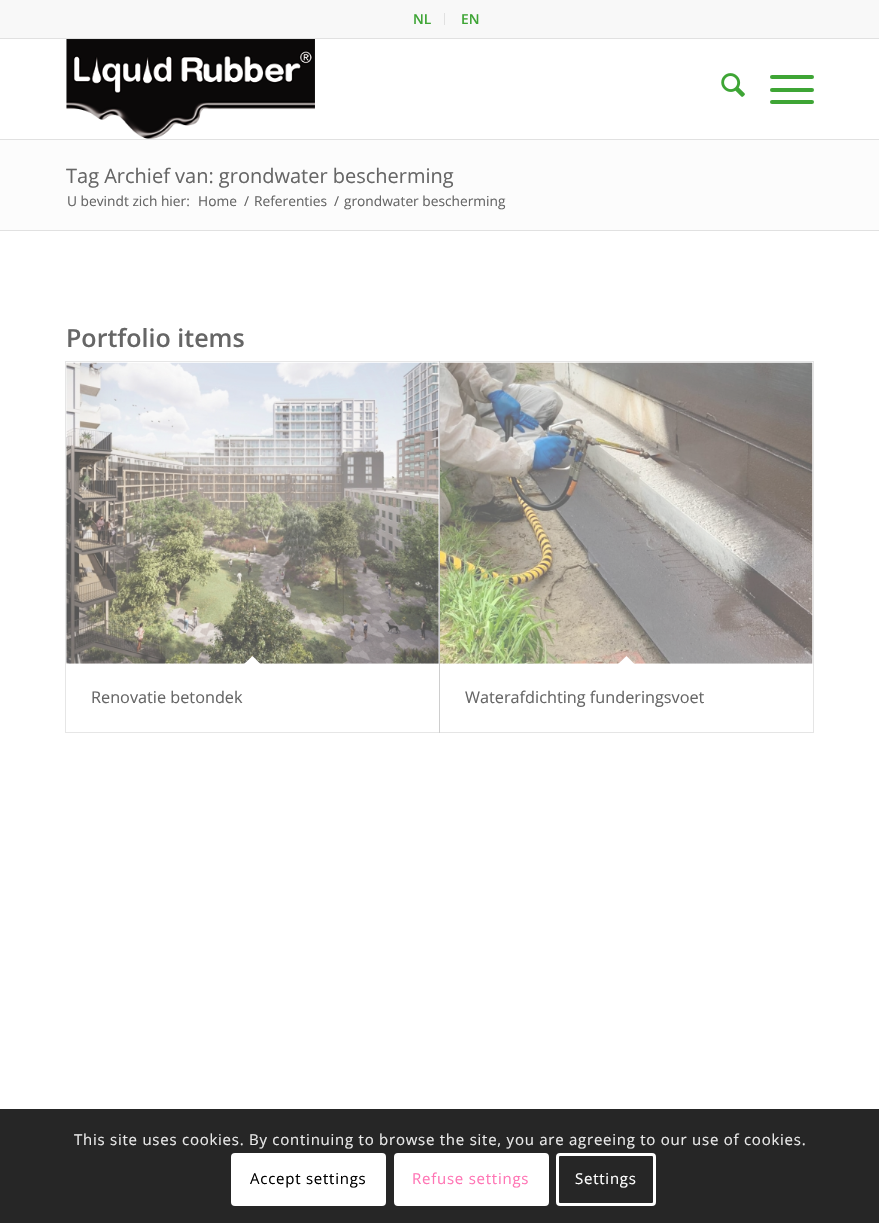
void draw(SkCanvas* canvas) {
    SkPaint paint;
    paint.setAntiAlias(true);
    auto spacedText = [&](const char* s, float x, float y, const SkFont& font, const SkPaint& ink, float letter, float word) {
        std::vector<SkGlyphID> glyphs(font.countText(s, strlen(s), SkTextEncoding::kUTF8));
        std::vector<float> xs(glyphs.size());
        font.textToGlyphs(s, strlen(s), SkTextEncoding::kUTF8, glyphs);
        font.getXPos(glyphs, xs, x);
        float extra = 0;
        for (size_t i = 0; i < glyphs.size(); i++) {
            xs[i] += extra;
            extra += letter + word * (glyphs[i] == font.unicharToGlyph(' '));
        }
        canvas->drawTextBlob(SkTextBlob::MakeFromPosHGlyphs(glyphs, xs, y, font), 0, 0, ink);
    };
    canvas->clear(0xFFFFFFFF);
    paint.setColor(0xFFF8F8F8);
    canvas->drawRect(SkRect::MakeXYWH(0, 0, 879, 38), paint);
    paint.setColor(0xFFE1E1E1);
    canvas->drawRect(SkRect::MakeXYWH(0, 38, 879, 1), paint);
    canvas->drawRect(SkRect::MakeXYWH(444, 13, 1, 12), paint);
    SkFont font1(fontMgr->matchFamilyStyle("Open Sans", SkFontStyle(600, SkFontStyle::kNormal_Width, SkFontStyle::kUpright_Slant)), 13.75f);
    font1.setSubpixel(true);
    paint.setColor(0xFF3EA535);
    canvas->drawString("NL", 413, 24, font1, paint);
    canvas->drawString("EN", 461, 24, font1, paint);
    paint.setColor(0xFFE1E1E1);
    canvas->drawRect(SkRect::MakeXYWH(0, 139, 879, 1), paint);
    canvas->drawImageRect(SkImages::DeferredFromEncodedData(SkData::MakeFromFileName("img1.png")), SkRect::MakeXYWH(66, 39, 249, 100), SkSamplingOptions());
    canvas->drawImageRect(SkImages::DeferredFromEncodedData(SkData::MakeFromFileName("img2.png")), SkRect::MakeXYWH(721, 73, 24, 24), SkSamplingOptions());
    paint.setColor(0xFF3EA535);
    canvas->drawRoundRect(SkRect::MakeXYWH(770, 88, 44, 4), 2, 2, paint);
    canvas->drawRoundRect(SkRect::MakeXYWH(770, 75, 44, 4), 2, 2, paint);
    canvas->drawRoundRect(SkRect::MakeXYWH(770, 100, 44, 4), 2, 2, paint);
    paint.setColor(0xFFFCFCFC);
    canvas->drawRect(SkRect::MakeXYWH(0, 140, 879, 90), paint);
    SkFont font2(fontMgr->matchFamilyStyle("Open Sans", SkFontStyle::Normal()), 20);
    font2.setSubpixel(true);
    paint.setColor(0xFF666666);
    canvas->drawString("Tag Archief van: grondwater bescherming", 66, 183, font2, paint);
    SkFont font3(fontMgr->matchFamilyStyle("Open Sans", SkFontStyle::Normal()), 13.75f);
    font3.setSubpixel(true);
    canvas->drawString("U bevindt zich hier:", 67, 206, font3, paint);
    canvas->drawString("Home", 198, 206, font3, paint);
    canvas->drawString("/", 244, 206, font3, paint);
    canvas->drawString("Referenties", 254, 206, font3, paint);
    canvas->drawString("/", 334, 206, font3, paint);
    canvas->drawString("grondwater bescherming", 344, 206, font3, paint);
    paint.setColor(0xFFE1E1E1);
    canvas->drawRect(SkRect::MakeXYWH(0, 230, 879, 1), paint);
    SkFont font4(fontMgr->matchFamilyStyle("Open Sans", SkFontStyle(600, SkFontStyle::kNormal_Width, SkFontStyle::kUpright_Slant)), 25);
    font4.setSubpixel(true);
    paint.setColor(0xFF666666);
    canvas->drawString("Portfolio items", 66, 347, font4, paint);
    paint.setStyle(SkPaint::kStroke_Style);
    paint.setStrokeWidth(1);
    paint.setColor(0xFFE6E6E6);
    canvas->drawRect(SkRect::MakeXYWH(65.5f, 361.5f, 374, 371), paint);
    canvas->drawImageRect(SkImages::DeferredFromEncodedData(SkData::MakeFromFileName("img3.png")), SkRect::MakeXYWH(66, 362, 373, 302), SkSamplingOptions());
    paint.setStyle(SkPaint::kFill_Style);
    paint.setColor(0xFFFFFFFF);
    canvas->drawPath(SkPathBuilder().moveTo(252.5f, 656).lineTo(261, 664.5f).lineTo(252.5f, 673.5f).lineTo(243.5f, 664.5f).close().detach(), paint);
    SkFont font5(fontMgr->matchFamilyStyle("Open Sans", SkFontStyle::Normal()), 16.25f);
    font5.setSubpixel(true);
    paint.setColor(0xFF666666);
    canvas->drawString("Renovatie betondek", 91, 703, font5, paint);
    paint.setStyle(SkPaint::kStroke_Style);
    paint.setColor(0x1A000000);
    canvas->drawRect(SkRect::MakeXYWH(439.5f, 361.5f, 374, 371), paint);
    canvas->drawImageRect(SkImages::DeferredFromEncodedData(SkData::MakeFromFileName("img4.png")), SkRect::MakeXYWH(440, 362, 373, 302), SkSamplingOptions());
    paint.setStyle(SkPaint::kFill_Style);
    paint.setColor(0xFFFFFFFF);
    canvas->drawPath(SkPathBuilder().moveTo(626.5f, 656).lineTo(635, 664.5f).lineTo(626.5f, 673.5f).lineTo(617.5f, 664.5f).close().detach(), paint);
    paint.setColor(0xFF666666);
    canvas->drawString("Waterafdichting funderingsvoet", 465, 703, font5, paint);
    paint.setColor(0xFF262626);
    canvas->drawRect(SkRect::MakeXYWH(0, 1109, 879, 114), paint);
    SkFont font6(fontMgr->matchFamilyStyle("Open Sans", SkFontStyle::Normal()), 15);
    font6.setSubpixel(true);
    paint.setColor(0xFFE9E9E9);
    spacedText("This site uses cookies. By continuing to browse the site, you are agreeing to our use of cookies.", 74, 1145, font6, paint, 0.75f, 0);
    paint.setColor(0xFFFFFFFF);
    canvas->drawRoundRect(SkRect::MakeXYWH(231, 1153, 155, 53), 4, 4, paint);
    paint.setColor(0xFF000000);
    spacedText("Accept settings", 250, 1184, font6, paint, 0.75f, 0);
    paint.setColor(0xFFFFFFFF);
    canvas->drawRoundRect(SkRect::MakeXYWH(395.5f, 1154.5f, 152, 50), 2.5f, 2.5f, paint);
    paint.setStyle(SkPaint::kStroke_Style);
    paint.setStrokeWidth(3);
    canvas->drawRoundRect(SkRect::MakeXYWH(395.5f, 1154.5f, 152, 50), 2.5f, 2.5f, paint);
    paint.setStyle(SkPaint::kFill_Style);
    paint.setColor(0xFFFF75B5);
    spacedText("Refuse settings", 412, 1184, font6, paint, 0.75f, 0);
    paint.setStyle(SkPaint::kStroke_Style);
    paint.setColor(0xFFFFFFFF);
    canvas->drawRoundRect(SkRect::MakeXYWH(557.5f, 1154.5f, 97, 50), 2.5f, 2.5f, paint);
    paint.setStyle(SkPaint::kFill_Style);
    spacedText("Settings", 575, 1184, font6, paint, 0.75f, 0);
}
